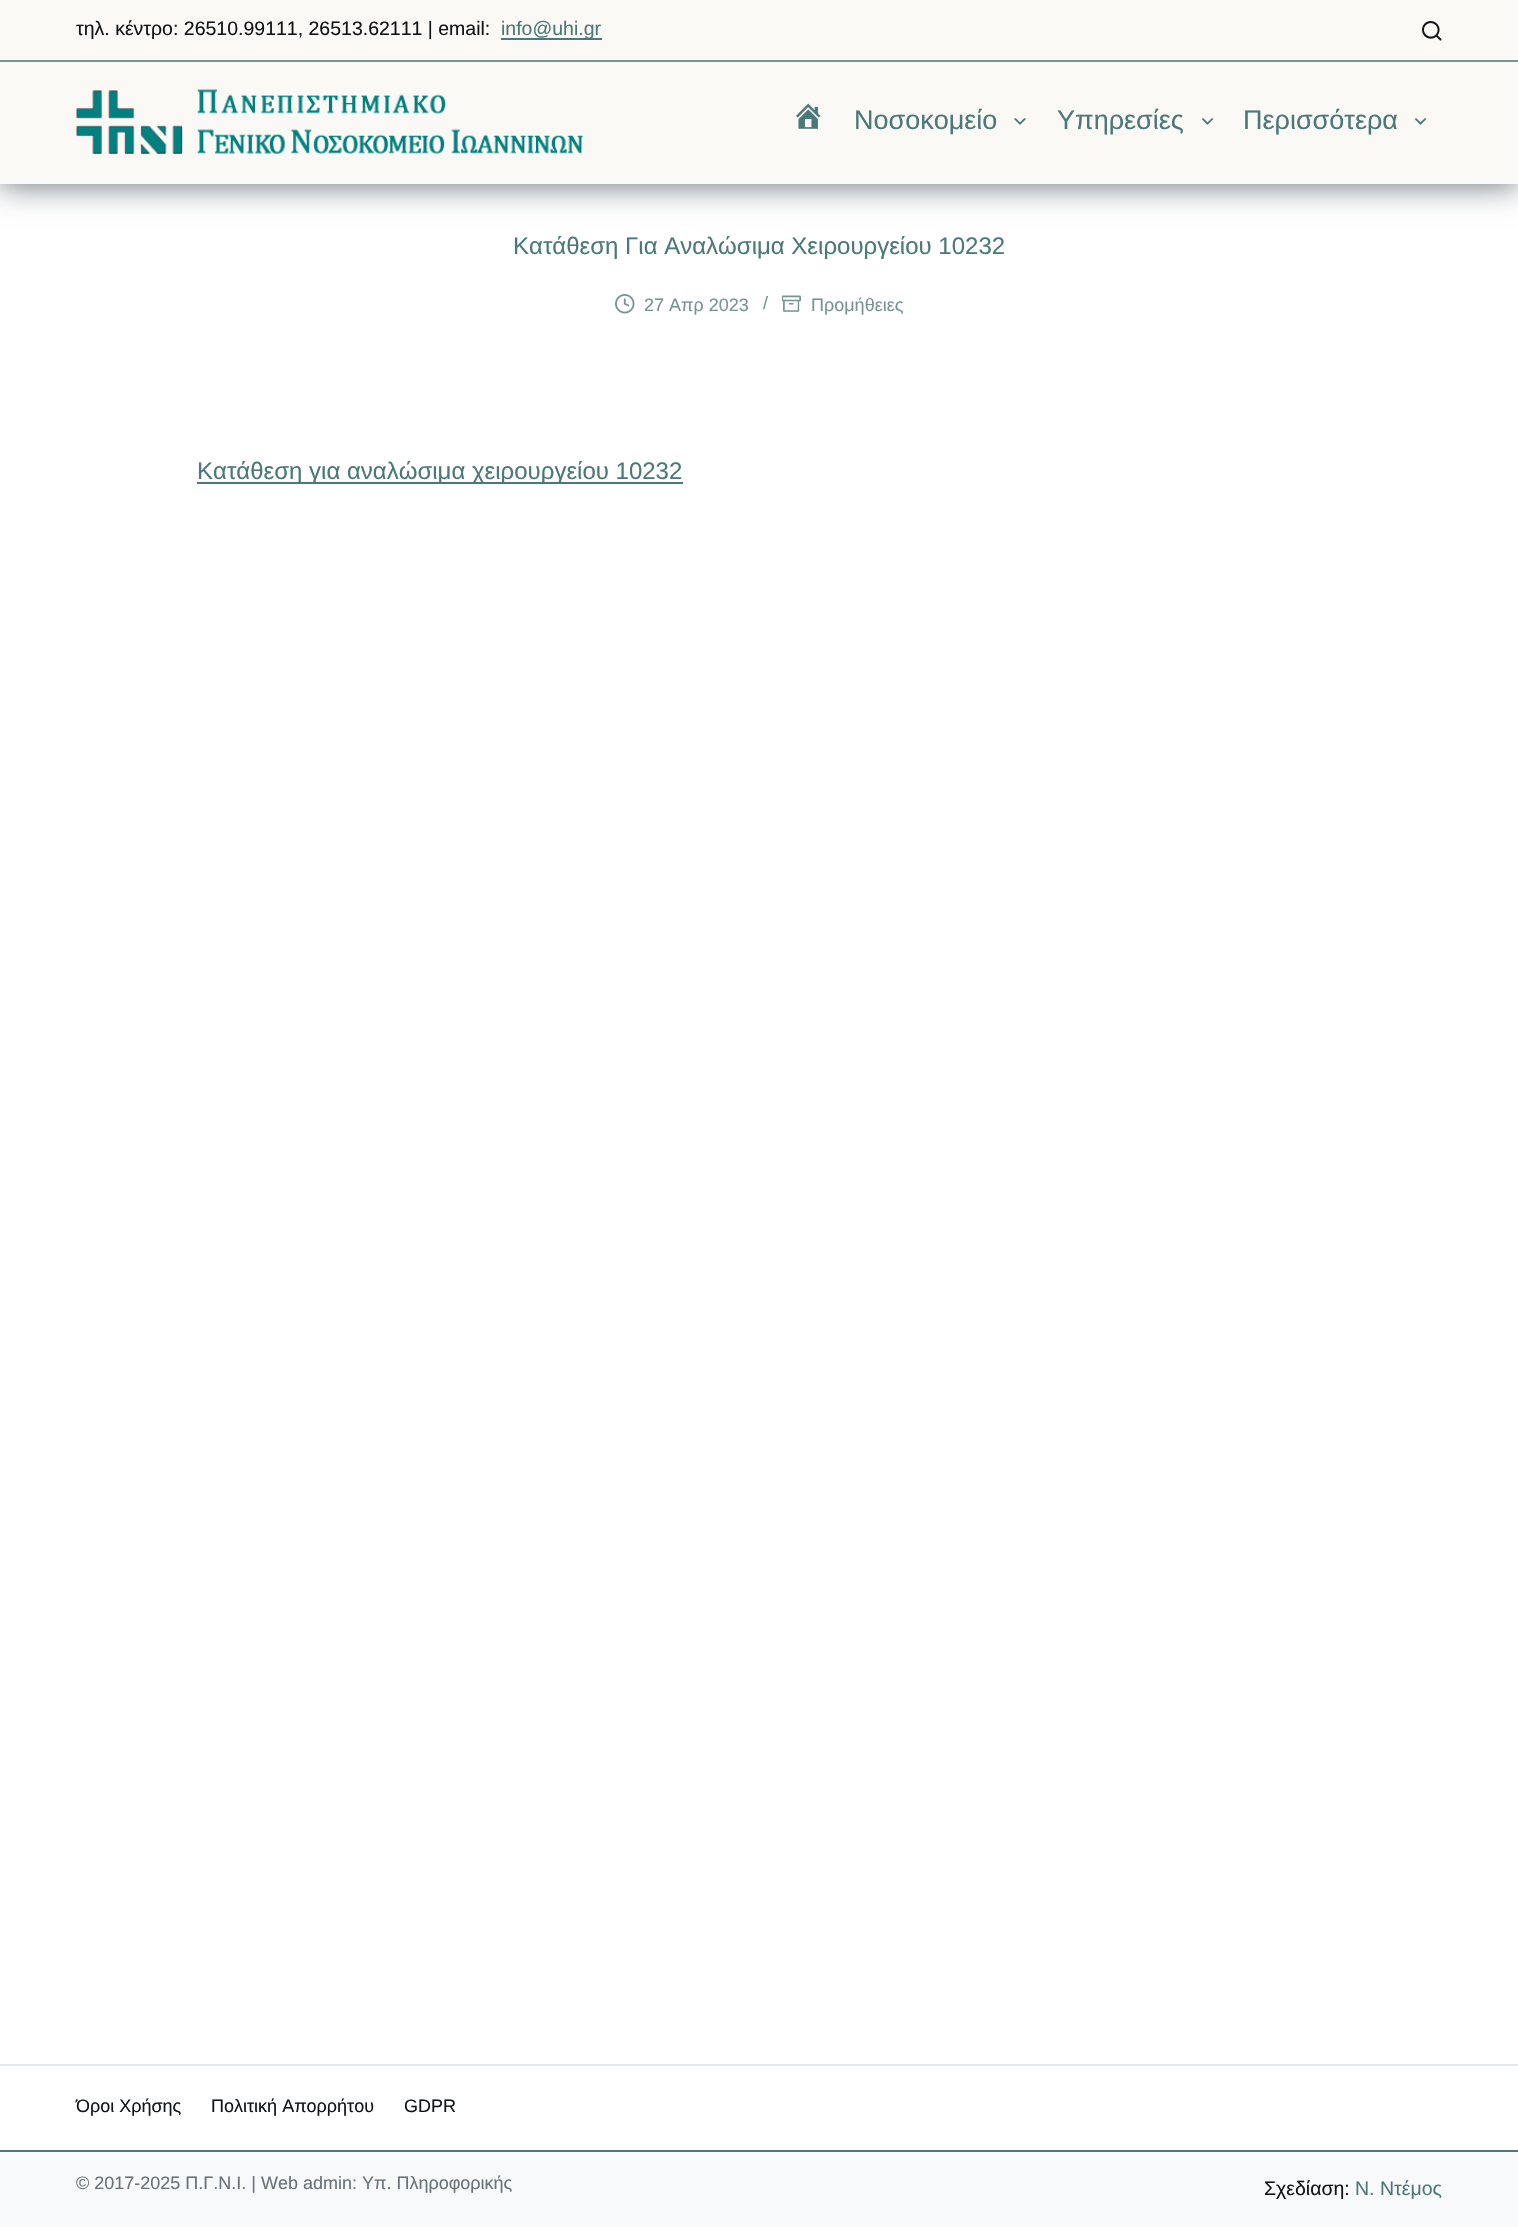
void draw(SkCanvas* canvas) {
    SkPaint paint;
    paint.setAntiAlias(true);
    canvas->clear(0xFFFFFFFF);
    paint.setColor(0xFF677178);
    paint.setMaskFilter(SkMaskFilter::MakeBlur(kNormal_SkBlurStyle, 15));
    canvas->drawRect(SkRect::MakeXYWH(0, 62, 1518, 123), paint);
    paint.setMaskFilter(nullptr);
    paint.setColor(0xFFFAF9F5);
    canvas->drawRect(SkRect::MakeXYWH(0, 0, 1518, 60), paint);
    SkFont font1(fontMgr->matchFamilyStyle("Liberation Sans", SkFontStyle::Normal()), 19.5f);
    font1.setSubpixel(true);
    paint.setColor(0xFF111518);
    canvas->drawString("τηλ. κέντρο: 26510.99111, 26513.62111 | email:", 76, 35, font1, paint);
    paint.setColor(0xFF4B7878);
    canvas->drawRect(SkRect::MakeXYWH(501, 38, 101, 2), paint);
    canvas->drawString("info@uhi.gr", 501, 35, font1, paint);
    canvas->drawImageRect(SkImages::DeferredFromEncodedData(SkData::MakeFromFileName("img1.png")), SkRect::MakeXYWH(1422, 21, 20, 20), SkSamplingOptions());
    paint.setColor(0xFFFAF9F5);
    canvas->drawRect(SkRect::MakeXYWH(0, 62, 1518, 120), paint);
    paint.setColor(0xFF779393);
    canvas->drawRect(SkRect::MakeXYWH(0, 60, 1518, 2), paint);
    paint.setColor(0xFFF8F9FB);
    canvas->drawRect(SkRect::MakeXYWH(0, 182, 1518, 2), paint);
    canvas->drawImageRect(SkImages::DeferredFromEncodedData(SkData::MakeFromFileName("img2.png")), SkRect::MakeXYWH(76, 89, 508, 65), SkSamplingOptions());
    canvas->drawImageRect(SkImages::DeferredFromEncodedData(SkData::MakeFromFileName("img3.png")), SkRect::MakeXYWH(796, 103, 25, 26), SkSamplingOptions());
    SkFont font2(fontMgr->matchFamilyStyle("Liberation Sans", SkFontStyle::Normal()), 27);
    font2.setSubpixel(true);
    paint.setColor(0xFF4B7878);
    canvas->drawString("Νοσοκομείο", 854, 129, font2, paint);
    canvas->drawImageRect(SkImages::DeferredFromEncodedData(SkData::MakeFromFileName("img4.png")), SkRect::MakeXYWH(1014, 118, 12, 7), SkSamplingOptions());
    canvas->drawString("Υπηρεσίες", 1057, 129, font2, paint);
    canvas->drawImageRect(SkImages::DeferredFromEncodedData(SkData::MakeFromFileName("img5.png")), SkRect::MakeXYWH(1202, 118, 12, 7), SkSamplingOptions());
    canvas->drawString("Περισσότερα", 1243, 129, font2, paint);
    canvas->drawImageRect(SkImages::DeferredFromEncodedData(SkData::MakeFromFileName("img5.png")), SkRect::MakeXYWH(1415, 118, 12, 7), SkSamplingOptions());
    SkFont font3(fontMgr->matchFamilyStyle("Liberation Sans", SkFontStyle::Normal()), 24);
    font3.setSubpixel(true);
    canvas->drawString("Κατάθεση Για Αναλώσιμα Χειρουργείου 10232", 513, 254, font3, paint);
    canvas->drawImageRect(SkImages::DeferredFromEncodedData(SkData::MakeFromFileName("img6.png")), SkRect::MakeXYWH(615, 294, 20, 20), SkSamplingOptions());
    SkFont font4(fontMgr->matchFamilyStyle("Liberation Sans", SkFontStyle::Normal()), 18);
    font4.setSubpixel(true);
    paint.setColor(0xFF779393);
    canvas->drawString("27 Απρ 2023", 644, 311, font4, paint);
    canvas->drawString("/", 763, 309, font4, paint);
    canvas->drawImageRect(SkImages::DeferredFromEncodedData(SkData::MakeFromFileName("img7.png")), SkRect::MakeXYWH(782, 295, 19, 17), SkSamplingOptions());
    canvas->drawString("Προμήθειες", 811, 311, font4, paint);
    paint.setColor(0xFF4B7878);
    canvas->drawRect(SkRect::MakeXYWH(197, 482, 486, 2), paint);
    canvas->drawString("Κατάθεση για αναλώσιμα χειρουργείου 10232", 197, 479, font3, paint);
    paint.setColor(0xFFE2E7ED);
    canvas->drawRect(SkRect::MakeXYWH(0, 2064, 1518, 2), paint);
    paint.setColor(0xFF111518);
    canvas->drawString("Όροι Χρήσης", 76, 2112, font4, paint);
    canvas->drawString("Πολιτική Απορρήτου", 211, 2112, font4, paint);
    canvas->drawString("GDPR", 404, 2112, font4, paint);
    paint.setColor(0xFFF8F9FB);
    canvas->drawRect(SkRect::MakeXYWH(0, 2152, 1518, 75), paint);
    paint.setColor(0xFF4B7878);
    canvas->drawRect(SkRect::MakeXYWH(0, 2150, 1518, 2), paint);
    paint.setColor(0xFF677178);
    canvas->drawString("© 2017-2025 Π.Γ.Ν.Ι. | Web admin: Υπ. Πληροφορικής", 76, 2189, font4, paint);
    paint.setColor(0xFF111518);
    canvas->drawString("Σχεδίαση:", 1264, 2195, font1, paint);
    paint.setColor(0xFF4B7878);
    canvas->drawString("Ν. Ντέμος", 1355, 2195, font1, paint);
}
